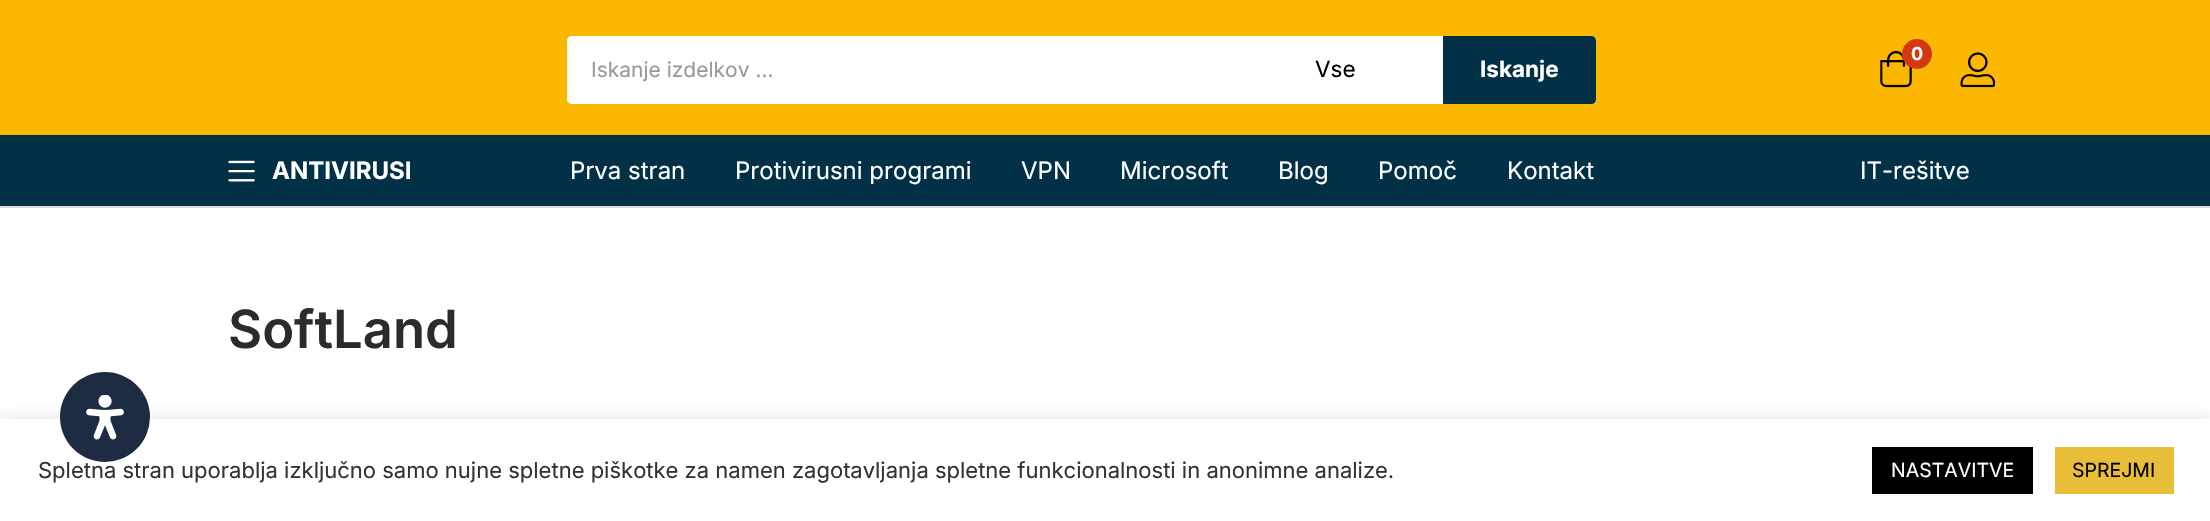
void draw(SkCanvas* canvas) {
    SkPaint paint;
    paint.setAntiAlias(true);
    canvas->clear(0xFFFFFFFF);
    paint.setColor(0xFFFCB800);
    canvas->drawRect(SkRect::MakeXYWH(0, 0, 2210, 135), paint);
    canvas->drawImageRect(SkImages::DeferredFromEncodedData(SkData::MakeFromFileName("img1.png")), SkRect::MakeXYWH(1880, 51, 32, 37), SkSamplingOptions());
    paint.setColor(0xFFD43811);
    canvas->drawCircle(1917, 54, 15, paint);
    SkFont font1(fontMgr->matchFamilyStyle("Inter", SkFontStyle::Bold()), 18);
    font1.setSubpixel(true);
    paint.setColor(0xFFFFFFFF);
    canvas->drawString("0", 1911, 60, font1, paint);
    canvas->drawImageRect(SkImages::DeferredFromEncodedData(SkData::MakeFromFileName("img2.png")), SkRect::MakeXYWH(1960, 52, 36, 36), SkSamplingOptions());
    canvas->drawRoundRect(SkRect::MakeXYWH(567, 36, 1029, 68), 5, 5, paint);
    canvas->drawPath(SkPathBuilder().moveTo(573, 36).lineTo(1293, 36).lineTo(1293, 104).lineTo(573, 104).cubicTo(569.5f, 104, 567, 101.5f, 567, 98).lineTo(567, 42).cubicTo(567, 38.5f, 569.5f, 36, 573, 36).close().detach(), paint);
    SkFont font2(fontMgr->matchFamilyStyle("Inter", SkFontStyle::Normal()), 21);
    font2.setSubpixel(true);
    paint.setColor(0xFF999999);
    canvas->drawString("Iskanje izdelkov ...", 591, 77, font2, paint);
    SkFont font3(fontMgr->matchFamilyStyle("Inter", SkFontStyle::Normal()), 22.5f);
    font3.setSubpixel(true);
    paint.setColor(0xFF000000);
    canvas->drawString("Vse", 1315, 77, font3, paint);
    paint.setColor(0xFF023047);
    canvas->drawPath(SkPathBuilder().moveTo(1443, 36).lineTo(1591, 36).cubicTo(1594, 36, 1596, 38, 1596, 41).lineTo(1596, 99).cubicTo(1596, 102, 1594, 104, 1591, 104).lineTo(1443, 104).close().detach(), paint);
    SkFont font4(fontMgr->matchFamilyStyle("Inter", SkFontStyle::Bold()), 22.5f);
    font4.setSubpixel(true);
    paint.setColor(0xFFFFFFFF);
    canvas->drawString("Iskanje", 1480, 77, font4, paint);
    paint.setColor(0xFF023047);
    canvas->drawRect(SkRect::MakeXYWH(0, 135, 2210, 71), paint);
    paint.setColor(0xFFDDDDDD);
    canvas->drawRect(SkRect::MakeXYWH(0, 206, 2210, 2), paint);
    canvas->drawImageRect(SkImages::DeferredFromEncodedData(SkData::MakeFromFileName("img3.png")), SkRect::MakeXYWH(228, 160, 27, 22), SkSamplingOptions());
    SkFont font5(fontMgr->matchFamilyStyle("Inter", SkFontStyle::Bold()), 24);
    font5.setSubpixel(true);
    paint.setColor(0xFFFFFFFF);
    canvas->drawString("ANTIVIRUSI", 272, 179, font5, paint);
    SkFont font6(fontMgr->matchFamilyStyle("Inter", SkFontStyle::Normal()), 24);
    font6.setSubpixel(true);
    canvas->drawString("Prva stran", 570, 179, font6, paint);
    canvas->drawString("Protivirusni programi", 735, 179, font6, paint);
    canvas->drawString("VPN", 1021, 179, font6, paint);
    canvas->drawString("Microsoft", 1120, 179, font6, paint);
    canvas->drawString("Blog", 1278, 179, font6, paint);
    canvas->drawString("Pomoč", 1378, 179, font6, paint);
    canvas->drawString("Kontakt", 1507, 179, font6, paint);
    canvas->drawString("IT-rešitve", 1860, 179, font6, paint);
    SkFont font7(fontMgr->matchFamilyStyle("Inter", SkFontStyle(600, SkFontStyle::kNormal_Width, SkFontStyle::kUpright_Slant)), 52.5f);
    font7.setSubpixel(true);
    paint.setColor(0xFF2B2B2B);
    canvas->drawString("SoftLand", 228, 348, font7, paint);
    paint.setColor(0x4DACABAB);
    paint.setMaskFilter(SkMaskFilter::MakeBlur(kNormal_SkBlurStyle, 7.5f));
    canvas->drawRect(SkRect::MakeXYWH(0, 417, 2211, 104), paint);
    paint.setMaskFilter(nullptr);
    paint.setColor(0xFFFFFFFF);
    canvas->drawRect(SkRect::MakeXYWH(0, 419, 2210, 102), paint);
    SkFont font8(fontMgr->matchFamilyStyle("Inter", SkFontStyle::Normal()), 22);
    font8.setSubpixel(true);
    paint.setColor(0xFF333333);
    canvas->drawString("Spletna stran uporablja izključno samo nujne spletne piškotke za namen zagotavljanja spletne funkcionalnosti in anonimne analize.", 38, 478, font8, paint);
    paint.setColor(0xFF1D2C43);
    canvas->drawCircle(105, 417, 45, paint);
    canvas->drawImageRect(SkImages::DeferredFromEncodedData(SkData::MakeFromFileName("img4.png")), SkRect::MakeXYWH(86, 395, 38, 45), SkSamplingOptions());
    paint.setColor(0xFF000000);
    canvas->drawRect(SkRect::MakeXYWH(1872, 447, 161, 47), paint);
    SkFont font9(fontMgr->matchFamilyStyle("Inter", SkFontStyle::Normal()), 19.5f);
    font9.setSubpixel(true);
    paint.setColor(0xFFFFFFFF);
    canvas->drawString("NASTAVITVE", 1891, 477, font9, paint);
    paint.setColor(0xFFE8BE38);
    canvas->drawRect(SkRect::MakeXYWH(2055, 447, 119, 47), paint);
    paint.setColor(0xFF000000);
    canvas->drawString("SPREJMI", 2072, 477, font9, paint);
}
